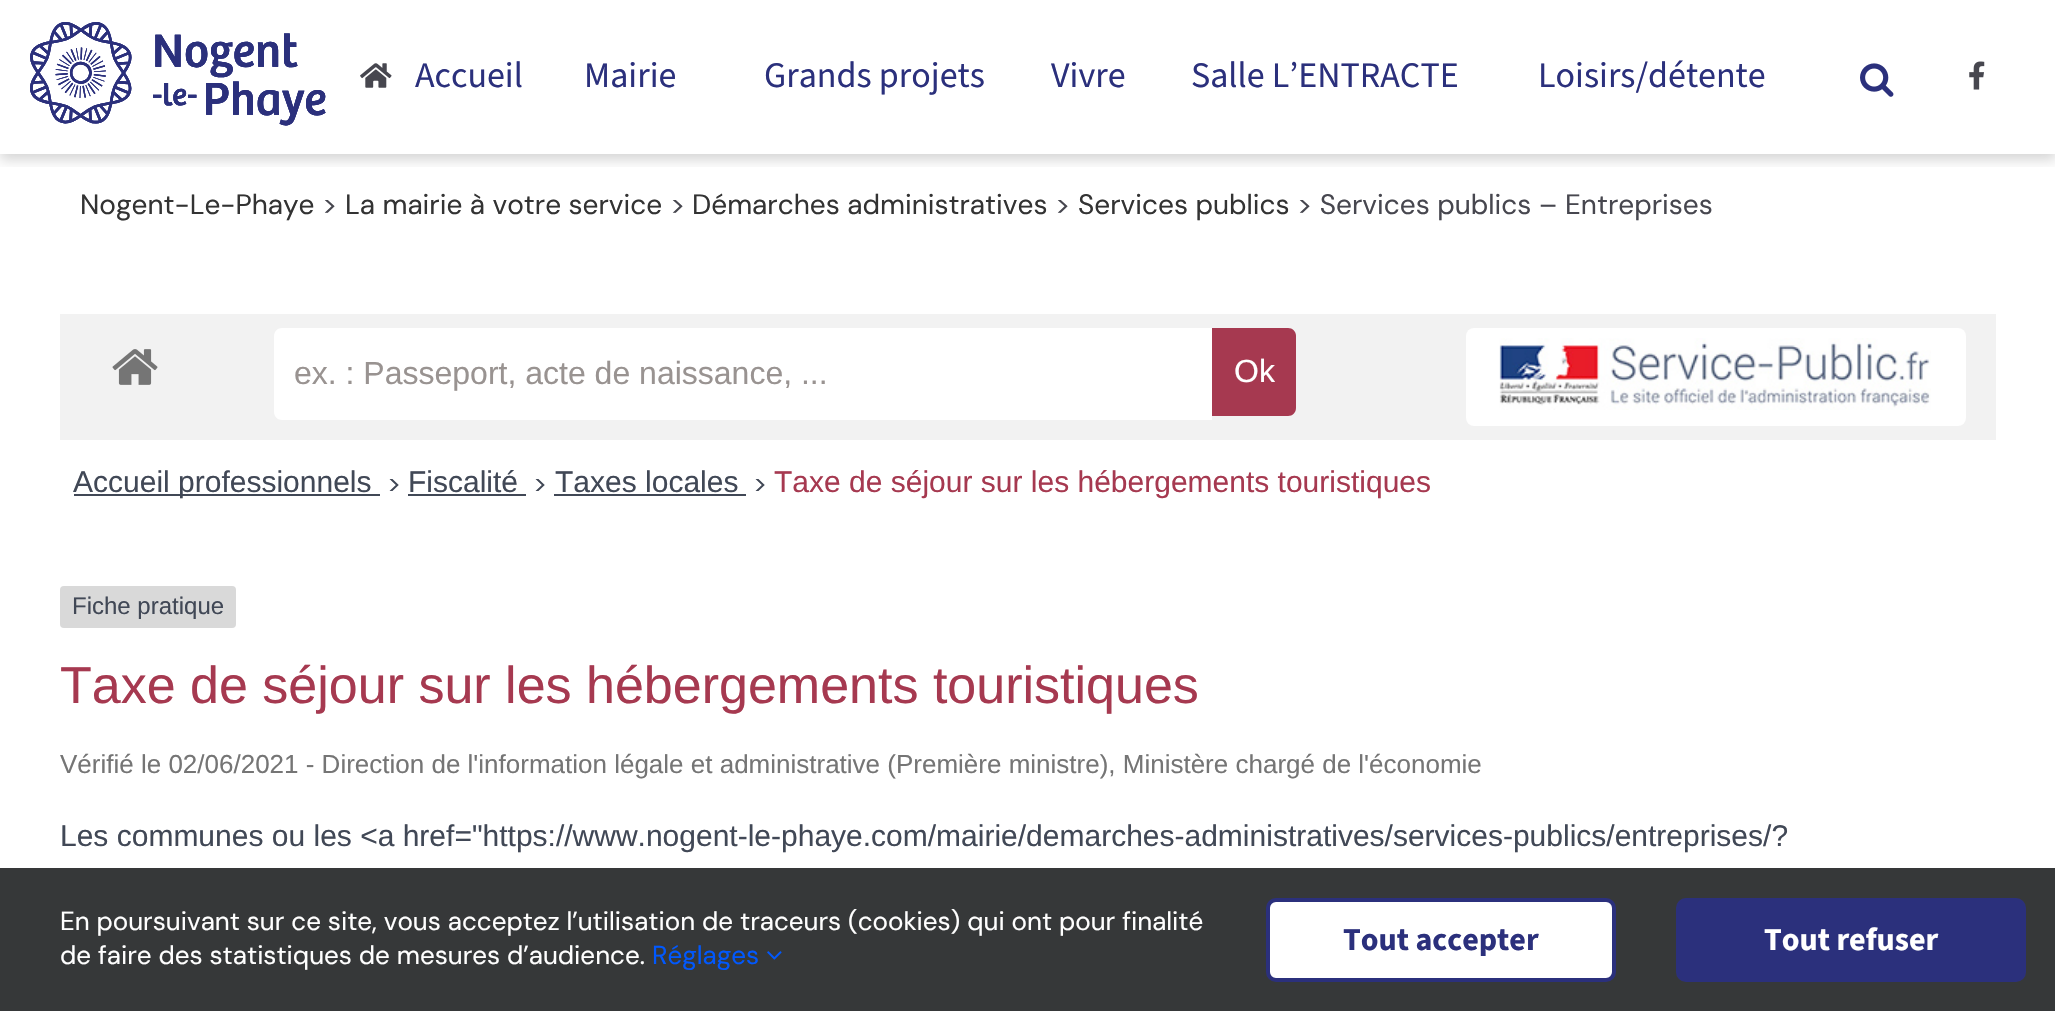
void draw(SkCanvas* canvas) {
    SkPaint paint;
    paint.setAntiAlias(true);
    canvas->clear(0xFFFFFFFF);
    canvas->save();
    canvas->clipRect(SkRect::MakeXYWH(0, 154, 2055, 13));
    paint.setColor(0x29000000);
    paint.setMaskFilter(SkMaskFilter::MakeBlur(kNormal_SkBlurStyle, 6));
    canvas->drawRect(SkRect::MakeXYWH(0, 6, 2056, 154), paint);
    paint.setMaskFilter(nullptr);
    canvas->restore();
    canvas->drawImageRect(SkImages::DeferredFromEncodedData(SkData::MakeFromFileName("img1.png")), SkRect::MakeXYWH(30, 22, 296, 104), SkSamplingOptions());
    canvas->drawImageRect(SkImages::DeferredFromEncodedData(SkData::MakeFromFileName("img2.png")), SkRect::MakeXYWH(30, 22, 296, 104), SkSamplingOptions());
    canvas->drawImageRect(SkImages::DeferredFromEncodedData(SkData::MakeFromFileName("img3.png")), SkRect::MakeXYWH(360, 63, 32, 25), SkSamplingOptions());
    SkFont font1(fontMgr->matchFamilyStyle("Source Sans 3", SkFontStyle::Normal()), 36);
    font1.setSubpixel(true);
    paint.setColor(0xFF2B307C);
    canvas->drawString("Accueil", 415, 87, font1, paint);
    canvas->drawString("Mairie", 584, 87, font1, paint);
    canvas->drawString("Grands projets", 764, 87, font1, paint);
    canvas->drawString("Vivre", 1051, 87, font1, paint);
    canvas->drawString("Salle L’ENTRACTE", 1191, 87, font1, paint);
    canvas->drawString("Loisirs/détente", 1538, 87, font1, paint);
    canvas->drawImageRect(SkImages::DeferredFromEncodedData(SkData::MakeFromFileName("img4.png")), SkRect::MakeXYWH(1860, 63, 34, 34), SkSamplingOptions());
    canvas->drawImageRect(SkImages::DeferredFromEncodedData(SkData::MakeFromFileName("img5.png")), SkRect::MakeXYWH(1969, 61, 16, 29), SkSamplingOptions());
    SkFont font2(fontMgr->matchFamilyStyle("DM Sans", SkFontStyle::Normal()), 28);
    font2.setSubpixel(true);
    paint.setColor(0xFF333333);
    canvas->drawString("Nogent-Le-Phaye", 80, 214, font2, paint);
    paint.setColor(0xFF47474F);
    canvas->drawString(">", 322, 214, font2, paint);
    paint.setColor(0xFF333333);
    canvas->drawString("La mairie à votre service", 345, 214, font2, paint);
    paint.setColor(0xFF47474F);
    canvas->drawString(">", 670, 214, font2, paint);
    paint.setColor(0xFF333333);
    canvas->drawString("Démarches administratives", 692, 214, font2, paint);
    paint.setColor(0xFF47474F);
    canvas->drawString(">", 1055, 214, font2, paint);
    paint.setColor(0xFF333333);
    canvas->drawString("Services publics", 1078, 214, font2, paint);
    paint.setColor(0xFF47474F);
    canvas->drawString("> Services publics – Entreprises", 1297, 214, font2, paint);
    paint.setColor(0xFFF2F2F2);
    canvas->drawRect(SkRect::MakeXYWH(60, 314, 1936, 126), paint);
    canvas->drawImageRect(SkImages::DeferredFromEncodedData(SkData::MakeFromFileName("img6.png")), SkRect::MakeXYWH(112, 349, 46, 36), SkSamplingOptions());
    paint.setColor(0xFFFFFFFF);
    canvas->drawPath(SkPathBuilder().moveTo(282, 328).lineTo(1212, 328).lineTo(1212, 420).lineTo(282, 420).cubicTo(277.5f, 420, 274, 416.5f, 274, 412).lineTo(274, 336).cubicTo(274, 331.5f, 277.5f, 328, 282, 328).close().detach(), paint);
    SkFont font3(fontMgr->matchFamilyStyle("Liberation Sans", SkFontStyle::Normal()), 32);
    font3.setSubpixel(true);
    paint.setColor(0xFF999391);
    canvas->drawString("ex. : Passeport, acte de naissance, ...", 294, 384, font3, paint);
    paint.setColor(0xFFA63950);
    canvas->drawPath(SkPathBuilder().moveTo(1212, 328).lineTo(1288, 328).cubicTo(1292.5f, 328, 1296, 331.5f, 1296, 336).lineTo(1296, 408).cubicTo(1296, 412.5f, 1292.5f, 416, 1288, 416).lineTo(1212, 416).close().detach(), paint);
    paint.setColor(0xFFFFFFFF);
    canvas->drawString("Ok", 1234, 382, font3, paint);
    canvas->drawRoundRect(SkRect::MakeXYWH(1466, 328, 500, 98), 8, 8, paint);
    canvas->drawImageRect(SkImages::DeferredFromEncodedData(SkData::MakeFromFileName("img7.png")), SkRect::MakeXYWH(1499, 338, 432, 72), SkSamplingOptions());
    paint.setColor(0xFF414856);
    canvas->drawRect(SkRect::MakeXYWH(74, 494, 306, 2), paint);
    SkFont font4(fontMgr->matchFamilyStyle("Liberation Sans", SkFontStyle::Normal()), 30);
    font4.setSubpixel(true);
    canvas->drawString("Accueil professionnels", 73, 492, font4, paint);
    SkFont font5(fontMgr->matchFamilyStyle("DM Sans", SkFontStyle::Normal()), 26);
    font5.setSubpixel(true);
    canvas->drawString(">", 387, 492, font5, paint);
    canvas->drawString("Fiscalité", 408, 492, font4, paint);
    canvas->drawRect(SkRect::MakeXYWH(408, 494, 118, 2), paint);
    canvas->drawString(">", 533, 492, font5, paint);
    canvas->drawString("Taxes locales", 555, 492, font4, paint);
    canvas->drawRect(SkRect::MakeXYWH(554, 494, 192, 2), paint);
    canvas->drawString(">", 753, 492, font5, paint);
    paint.setColor(0xFFA63950);
    canvas->drawString("Taxe de séjour sur les hébergements touristiques", 774, 492, font4, paint);
    paint.setColor(0xFFD9D9D9);
    canvas->drawRoundRect(SkRect::MakeXYWH(60, 586, 176, 42), 4, 4, paint);
    SkFont font6(fontMgr->matchFamilyStyle("Liberation Sans", SkFontStyle::Normal()), 24);
    font6.setSubpixel(true);
    paint.setColor(0xFF414856);
    canvas->drawString("Fiche pratique", 72, 614, font6, paint);
    SkFont font7(fontMgr->matchFamilyStyle("Liberation Sans", SkFontStyle::Normal()), 52);
    font7.setSubpixel(true);
    paint.setColor(0xFFA63950);
    canvas->drawString("Taxe de séjour sur les hébergements touristiques", 60, 703, font7, paint);
    SkFont font8(fontMgr->matchFamilyStyle("Liberation Sans", SkFontStyle::Normal()), 26);
    font8.setSubpixel(true);
    paint.setColor(0xFF757575);
    canvas->drawString("Vérifié le 02/06/2021 - Direction de l'information légale et administrative (Première ministre), Ministère chargé de l'économie", 60, 773, font8, paint);
    paint.setColor(0xFF414856);
    canvas->drawString("Les communes ou les <a href=\"https://www.nogent-le-phaye.com/mairie/demarches-administratives/services-publics/entreprises/?", 60, 846, font4, paint);
    paint.setColor(0xFF363839);
    canvas->drawRect(SkRect::MakeXYWH(0, 868, 2055, 143), paint);
    paint.setColor(0xFFFFFFFF);
    canvas->drawString("En poursuivant sur ce site, vous acceptez l’utilisation de traceurs (cookies) qui ont pour finalité", 60, 930, font5, paint);
    canvas->drawString("de faire des statistiques de mesures d’audience.", 60, 964, font5, paint);
    paint.setColor(0xFF0058FF);
    canvas->drawString("Réglages", 652, 964, font5, paint);
    canvas->drawImageRect(SkImages::DeferredFromEncodedData(SkData::MakeFromFileName("img8.png")), SkRect::MakeXYWH(767, 951, 15, 9), SkSamplingOptions());
    paint.setColor(0xFFFFFFFF);
    canvas->drawRoundRect(SkRect::MakeXYWH(1268, 900, 346, 80), 8, 8, paint);
    paint.setStyle(SkPaint::kStroke_Style);
    paint.setStrokeWidth(4);
    paint.setColor(0xFF2B307C);
    canvas->drawRoundRect(SkRect::MakeXYWH(1268, 900, 346, 80), 8, 8, paint);
    SkFont font9(fontMgr->matchFamilyStyle("Source Sans 3", SkFontStyle::Bold()), 32);
    font9.setSubpixel(true);
    paint.setStyle(SkPaint::kFill_Style);
    canvas->drawString("Tout accepter", 1343, 950, font9, paint);
    canvas->drawRoundRect(SkRect::MakeXYWH(1678, 900, 346, 80), 8, 8, paint);
    paint.setStyle(SkPaint::kStroke_Style);
    canvas->drawRoundRect(SkRect::MakeXYWH(1678, 900, 346, 80), 8, 8, paint);
    paint.setStyle(SkPaint::kFill_Style);
    paint.setColor(0xFFFFFFFF);
    canvas->drawString("Tout refuser", 1764, 950, font9, paint);
}
